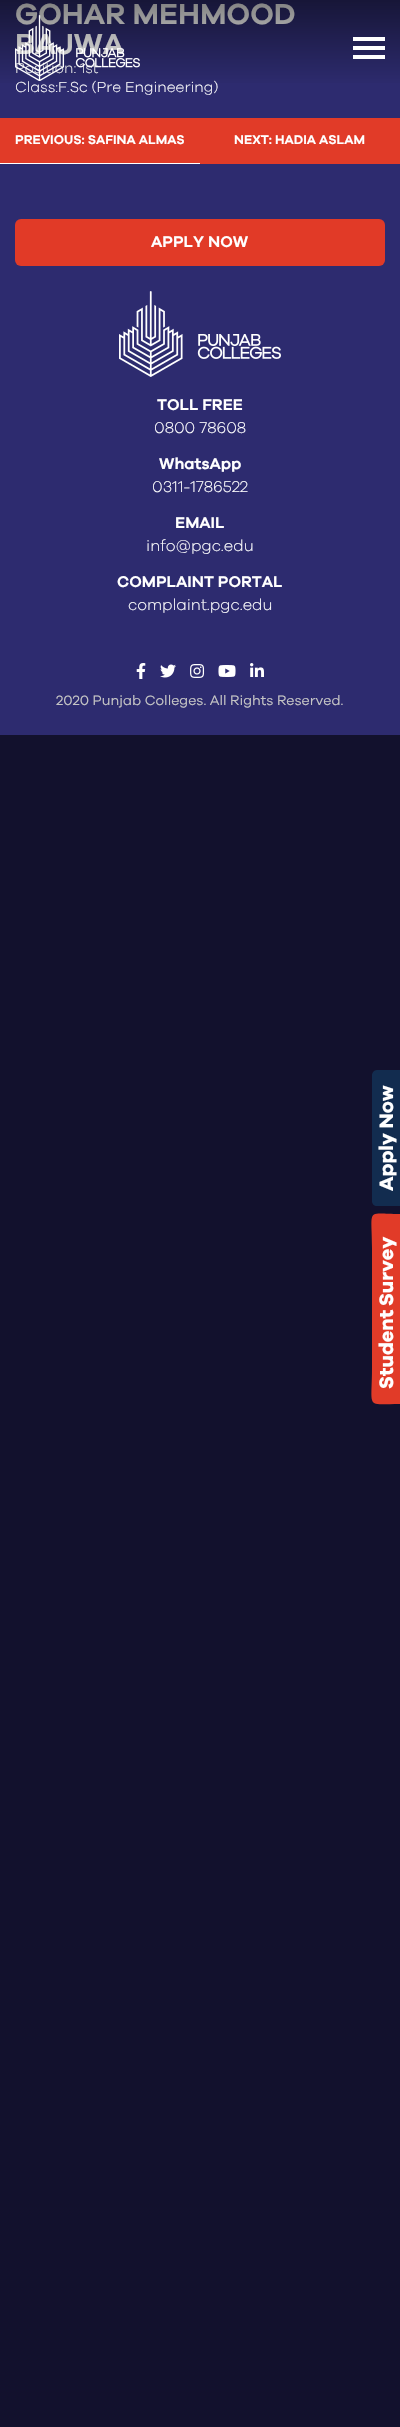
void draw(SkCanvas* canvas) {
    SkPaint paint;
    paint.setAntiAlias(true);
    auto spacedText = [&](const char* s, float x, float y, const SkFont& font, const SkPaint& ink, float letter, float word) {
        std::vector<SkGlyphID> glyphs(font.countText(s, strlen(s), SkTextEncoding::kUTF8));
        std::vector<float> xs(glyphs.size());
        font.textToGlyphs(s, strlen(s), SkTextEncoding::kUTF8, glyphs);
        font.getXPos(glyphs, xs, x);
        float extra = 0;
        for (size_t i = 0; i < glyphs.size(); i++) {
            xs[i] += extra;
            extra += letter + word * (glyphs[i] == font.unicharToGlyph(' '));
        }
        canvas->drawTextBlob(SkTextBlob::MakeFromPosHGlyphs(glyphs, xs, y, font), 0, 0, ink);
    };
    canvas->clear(0xFF2D2B6F);
    SkFont font1(fontMgr->matchFamilyStyle("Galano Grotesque", SkFontStyle::Normal()), 30);
    font1.setSubpixel(true);
    paint.setColor(0xFFFFFFFF);
    canvas->drawString("GOHAR MEHMOOD", 15, 24, font1, paint);
    canvas->drawString("BAJWA", 15, 54, font1, paint);
    SkFont font2(fontMgr->matchFamilyStyle("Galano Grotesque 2", SkFontStyle::Normal()), 15);
    font2.setSubpixel(true);
    canvas->drawString("Position: 1st", 15, 73, font2, paint);
    canvas->drawString("Class:F.Sc (Pre Engineering)", 15, 92, font2, paint);
    {
        const SkColor colors[] = {0x80000000, 0x00000000};
        const float stops[] = {0, 0.9f};
        const SkPoint ends[] = {{200, 0}, {200, 96}};
        paint.setShader(SkGradientShader::MakeLinear(ends, colors, stops, 2, SkTileMode::kClamp));
        paint.setAlpha(255);
    }
    canvas->drawRect(SkRect::MakeXYWH(0, 0, 400, 83), paint);
    canvas->drawImageRect(SkImages::DeferredFromEncodedData(SkData::MakeFromFileName("img1.png")), SkRect::MakeXYWH(15, 15, 125, 66), SkSamplingOptions());
    paint.setShader(nullptr);
    paint.setColor(0xFFFFFFFF);
    canvas->drawRect(SkRect::MakeXYWH(353, 37, 32, 4), paint);
    canvas->drawRect(SkRect::MakeXYWH(353, 46, 32, 4), paint);
    canvas->drawRect(SkRect::MakeXYWH(353, 55, 32, 4), paint);
    paint.setColor(0xFFE13B28);
    canvas->drawRect(SkRect::MakeXYWH(0, 118, 400, 46), paint);
    paint.setColor(0xFFFFFFFF);
    canvas->drawRect(SkRect::MakeXYWH(0, 163, 200, 1), paint);
    SkFont font3(fontMgr->matchFamilyStyle("Galano Grotesque", SkFontStyle::Normal()), 13);
    font3.setSubpixel(true);
    canvas->drawString("PREVIOUS: SAFINA ALMAS", 15, 144, font3, paint);
    canvas->drawString("NEXT: HADIA ASLAM", 234, 144, font3, paint);
    paint.setColor(0xFFE13A27);
    canvas->drawRoundRect(SkRect::MakeXYWH(15, 219, 370, 47), 6, 6, paint);
    SkFont font4(fontMgr->matchFamilyStyle("Galano Grotesque", SkFontStyle::Normal()), 16);
    font4.setSubpixel(true);
    paint.setColor(0xFFFFFFFF);
    canvas->drawString("APPLY NOW", 151, 247, font4, paint);
    canvas->drawImageRect(SkImages::DeferredFromEncodedData(SkData::MakeFromFileName("img2.png")), SkRect::MakeXYWH(119, 291, 162, 86), SkSamplingOptions());
    canvas->drawString("TOLL FREE", 157, 410, font4, paint);
    SkFont font5(fontMgr->matchFamilyStyle("Galano Grotesque 2", SkFontStyle::Normal()), 16);
    font5.setSubpixel(true);
    canvas->drawString("0800 78608", 154, 433, font5, paint);
    canvas->drawString("WhatsApp", 159, 469, font4, paint);
    canvas->drawString("0311-1786522", 152, 492, font5, paint);
    canvas->drawString("EMAIL", 175, 528, font4, paint);
    canvas->drawString("info@pgc.edu", 146, 551, font5, paint);
    canvas->drawString("COMPLAINT PORTAL", 117, 587, font4, paint);
    canvas->drawString("complaint.pgc.edu", 128, 610, font5, paint);
    canvas->drawImageRect(SkImages::DeferredFromEncodedData(SkData::MakeFromFileName("img3.png")), SkRect::MakeXYWH(136, 663, 10, 16), SkSamplingOptions());
    canvas->drawImageRect(SkImages::DeferredFromEncodedData(SkData::MakeFromFileName("img4.png")), SkRect::MakeXYWH(160, 664, 16, 14), SkSamplingOptions());
    canvas->drawImageRect(SkImages::DeferredFromEncodedData(SkData::MakeFromFileName("img5.png")), SkRect::MakeXYWH(190, 664, 15, 14), SkSamplingOptions());
    canvas->drawImageRect(SkImages::DeferredFromEncodedData(SkData::MakeFromFileName("img6.png")), SkRect::MakeXYWH(218, 665, 18, 12), SkSamplingOptions());
    canvas->drawImageRect(SkImages::DeferredFromEncodedData(SkData::MakeFromFileName("img7.png")), SkRect::MakeXYWH(250, 663, 14, 14), SkSamplingOptions());
    SkFont font6(fontMgr->matchFamilyStyle("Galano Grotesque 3", SkFontStyle::Normal()), 14);
    font6.setSubpixel(true);
    paint.setColor(0xFFC5C5C5);
    canvas->drawString("2020 Punjab Colleges. All Rights Reserved.", 56, 705, font6, paint);
    paint.setColor(0xFF12112D);
    canvas->drawRect(SkRect::MakeXYWH(0, 735, 400, 1692), paint);
    paint.setColor(0xFF122C4F);
    canvas->drawPath(SkPathBuilder().moveTo(400, 1206).lineTo(377, 1206).cubicTo(374, 1206, 372, 1204, 372, 1201).lineTo(372, 1075).cubicTo(372, 1073, 374, 1070, 377, 1070).lineTo(400, 1070).close().detach(), paint);
    SkFont font7(fontMgr->matchFamilyStyle("Galano Grotesque", SkFontStyle::Bold()), 20);
    font7.setSubpixel(true);
    paint.setColor(0xFFFFFFFF);
    canvas->save();
    canvas->rotate(-90, 393, 1191);
    canvas->drawString("Apply Now", 393, 1191, font7, paint);
    canvas->restore();
    paint.setColor(0xFFE13B28);
    canvas->drawPath(SkPathBuilder().moveTo(400, 1404).cubicTo(365, 1404, 372, 1410, 372, 1368).lineTo(372, 1248).cubicTo(372, 1207, 365, 1214, 400, 1214).close().detach(), paint);
    paint.setColor(0xFFFFFFFF);
    canvas->save();
    canvas->rotate(-90, 393, 1389);
    spacedText("Student Survey", 393, 1389, font7, paint, 0, -1);
    canvas->restore();
}
